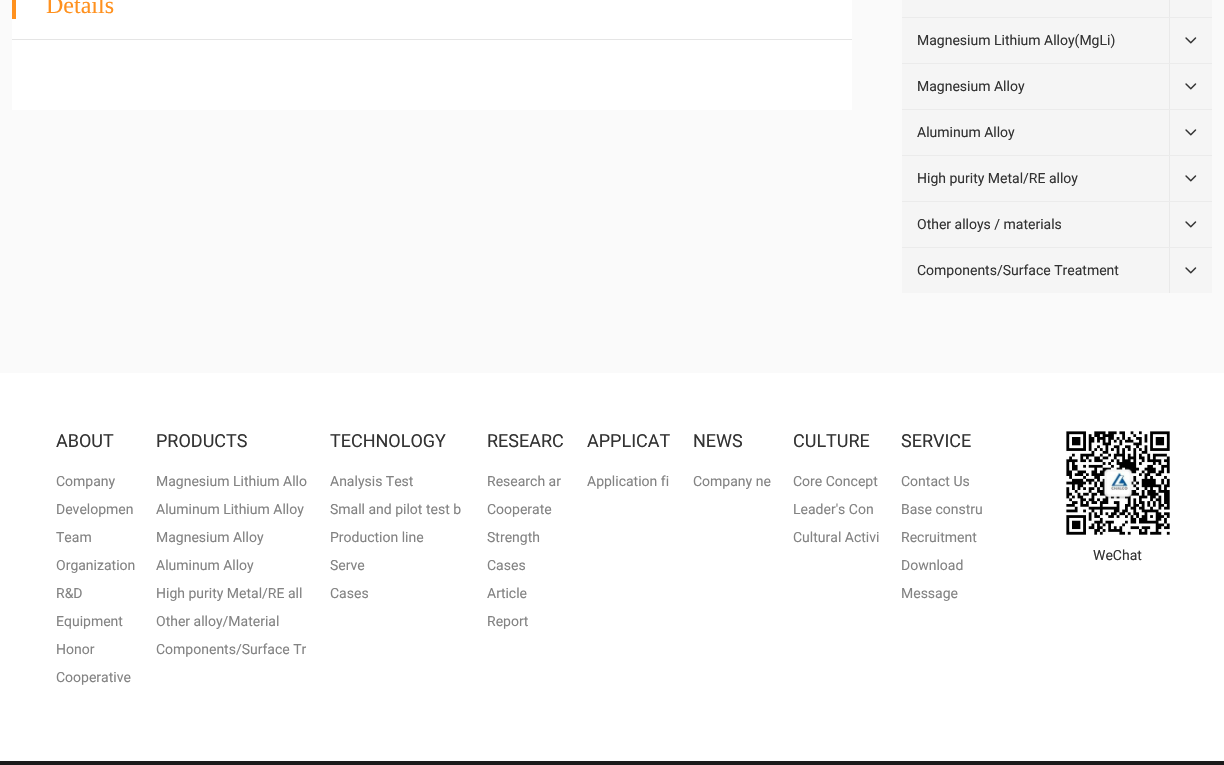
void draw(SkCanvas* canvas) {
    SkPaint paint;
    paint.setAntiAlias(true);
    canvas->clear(0xFFFAFAFA);
    paint.setColor(0xFFFFFFFF);
    canvas->drawRect(SkRect::MakeXYWH(12, 0, 840, 110), paint);
    paint.setColor(0xFFFF911E);
    canvas->drawRect(SkRect::MakeXYWH(12, 0, 4, 19), paint);
    SkFont font1(fontMgr->matchFamilyStyle("Liberation Serif", SkFontStyle::Normal()), 24);
    font1.setSubpixel(true);
    canvas->drawString("Details", 46, 13, font1, paint);
    paint.setColor(0xFFE5E5E5);
    canvas->drawRect(SkRect::MakeXYWH(12, 39, 840, 1), paint);
    paint.setColor(0xFFF5F5F5);
    canvas->drawRect(SkRect::MakeXYWH(902, 0, 310, 17), paint);
    paint.setColor(0xFFEBEBEB);
    canvas->drawRect(SkRect::MakeXYWH(902, 17, 310, 1), paint);
    paint.setColor(0xFFE9E9E9);
    canvas->drawRect(SkRect::MakeXYWH(1169, 0, 1, 17), paint);
    paint.setColor(0xFFF5F5F5);
    canvas->drawRect(SkRect::MakeXYWH(902, 18, 310, 45), paint);
    paint.setColor(0xFFEBEBEB);
    canvas->drawRect(SkRect::MakeXYWH(902, 63, 310, 1), paint);
    SkFont font2(fontMgr->matchFamilyStyle("Roboto", SkFontStyle::Normal()), 14);
    font2.setSubpixel(true);
    paint.setColor(0xFF333333);
    canvas->drawString("Magnesium Lithium Alloy(MgLi)", 917, 45, font2, paint);
    paint.setColor(0xFFE9E9E9);
    canvas->drawRect(SkRect::MakeXYWH(1169, 18, 1, 45), paint);
    canvas->drawImageRect(SkImages::DeferredFromEncodedData(SkData::MakeFromFileName("img1.png")), SkRect::MakeXYWH(1185, 37, 12, 7), SkSamplingOptions());
    paint.setColor(0xFFF5F5F5);
    canvas->drawRect(SkRect::MakeXYWH(902, 64, 310, 45), paint);
    paint.setColor(0xFFEBEBEB);
    canvas->drawRect(SkRect::MakeXYWH(902, 109, 310, 1), paint);
    paint.setColor(0xFF333333);
    canvas->drawString("Magnesium Alloy", 917, 91, font2, paint);
    paint.setColor(0xFFE9E9E9);
    canvas->drawRect(SkRect::MakeXYWH(1169, 64, 1, 45), paint);
    canvas->drawImageRect(SkImages::DeferredFromEncodedData(SkData::MakeFromFileName("img1.png")), SkRect::MakeXYWH(1185, 83, 12, 7), SkSamplingOptions());
    paint.setColor(0xFFF5F5F5);
    canvas->drawRect(SkRect::MakeXYWH(902, 110, 310, 45), paint);
    paint.setColor(0xFFEBEBEB);
    canvas->drawRect(SkRect::MakeXYWH(902, 155, 310, 1), paint);
    paint.setColor(0xFF333333);
    canvas->drawString("Aluminum Alloy", 917, 137, font2, paint);
    paint.setColor(0xFFE9E9E9);
    canvas->drawRect(SkRect::MakeXYWH(1169, 110, 1, 45), paint);
    canvas->drawImageRect(SkImages::DeferredFromEncodedData(SkData::MakeFromFileName("img1.png")), SkRect::MakeXYWH(1185, 129, 12, 7), SkSamplingOptions());
    paint.setColor(0xFFF5F5F5);
    canvas->drawRect(SkRect::MakeXYWH(902, 156, 310, 45), paint);
    paint.setColor(0xFFEBEBEB);
    canvas->drawRect(SkRect::MakeXYWH(902, 201, 310, 1), paint);
    paint.setColor(0xFF333333);
    canvas->drawString("High purity Metal/RE alloy", 917, 183, font2, paint);
    paint.setColor(0xFFE9E9E9);
    canvas->drawRect(SkRect::MakeXYWH(1169, 156, 1, 45), paint);
    canvas->drawImageRect(SkImages::DeferredFromEncodedData(SkData::MakeFromFileName("img1.png")), SkRect::MakeXYWH(1185, 175, 12, 7), SkSamplingOptions());
    paint.setColor(0xFFF5F5F5);
    canvas->drawRect(SkRect::MakeXYWH(902, 202, 310, 45), paint);
    paint.setColor(0xFFEBEBEB);
    canvas->drawRect(SkRect::MakeXYWH(902, 247, 310, 1), paint);
    paint.setColor(0xFF333333);
    canvas->drawString("Other alloys / materials", 917, 229, font2, paint);
    paint.setColor(0xFFE9E9E9);
    canvas->drawRect(SkRect::MakeXYWH(1169, 202, 1, 45), paint);
    canvas->drawImageRect(SkImages::DeferredFromEncodedData(SkData::MakeFromFileName("img1.png")), SkRect::MakeXYWH(1185, 221, 12, 7), SkSamplingOptions());
    paint.setColor(0xFFF5F5F5);
    canvas->drawRect(SkRect::MakeXYWH(902, 248, 310, 45), paint);
    paint.setColor(0xFF333333);
    canvas->drawString("Components/Surface Treatment", 917, 275, font2, paint);
    paint.setColor(0xFFE9E9E9);
    canvas->drawRect(SkRect::MakeXYWH(1169, 248, 1, 45), paint);
    canvas->drawImageRect(SkImages::DeferredFromEncodedData(SkData::MakeFromFileName("img1.png")), SkRect::MakeXYWH(1185, 267, 12, 7), SkSamplingOptions());
    paint.setColor(0xFFFFFFFF);
    canvas->drawRect(SkRect::MakeXYWH(0, 373, 1224, 388), paint);
    SkFont font3(fontMgr->matchFamilyStyle("Roboto", SkFontStyle::Normal()), 18);
    font3.setSubpixel(true);
    paint.setColor(0xFF333333);
    canvas->drawString("ABOUT", 56, 447, font3, paint);
    paint.setColor(0xFF838383);
    canvas->drawString("Company", 56, 486, font2, paint);
    canvas->drawString("Developmen", 56, 514, font2, paint);
    canvas->drawString("Team", 56, 542, font2, paint);
    canvas->drawString("Organization", 56, 570, font2, paint);
    canvas->drawString("R&D", 56, 598, font2, paint);
    canvas->drawString("Equipment", 56, 626, font2, paint);
    canvas->drawString("Honor", 56, 654, font2, paint);
    canvas->drawString("Cooperative", 56, 682, font2, paint);
    paint.setColor(0xFF333333);
    canvas->drawString("PRODUCTS", 156, 447, font3, paint);
    paint.setColor(0xFF838383);
    canvas->drawString("Magnesium Lithium Allo", 156, 486, font2, paint);
    canvas->drawString("Aluminum Lithium Alloy", 156, 514, font2, paint);
    canvas->drawString("Magnesium Alloy", 156, 542, font2, paint);
    canvas->drawString("Aluminum Alloy", 156, 570, font2, paint);
    canvas->drawString("High purity Metal/RE all", 156, 598, font2, paint);
    canvas->drawString("Other alloy/Material", 156, 626, font2, paint);
    canvas->drawString("Components/Surface Tr", 156, 654, font2, paint);
    paint.setColor(0xFF333333);
    canvas->drawString("TECHNOLOGY", 330, 447, font3, paint);
    paint.setColor(0xFF838383);
    canvas->drawString("Analysis Test", 330, 486, font2, paint);
    canvas->drawString("Small and pilot test b", 330, 514, font2, paint);
    canvas->drawString("Production line", 330, 542, font2, paint);
    canvas->drawString("Serve", 330, 570, font2, paint);
    canvas->drawString("Cases", 330, 598, font2, paint);
    paint.setColor(0xFF333333);
    canvas->drawString("RESEARC", 487, 447, font3, paint);
    paint.setColor(0xFF838383);
    canvas->drawString("Research ar", 487, 486, font2, paint);
    canvas->drawString("Cooperate", 487, 514, font2, paint);
    canvas->drawString("Strength", 487, 542, font2, paint);
    canvas->drawString("Cases", 487, 570, font2, paint);
    canvas->drawString("Article", 487, 598, font2, paint);
    canvas->drawString("Report", 487, 626, font2, paint);
    paint.setColor(0xFF333333);
    canvas->drawString("APPLICAT", 587, 447, font3, paint);
    paint.setColor(0xFF838383);
    canvas->drawString("Application fi", 587, 486, font2, paint);
    paint.setColor(0xFF333333);
    canvas->drawString("NEWS", 693, 447, font3, paint);
    paint.setColor(0xFF838383);
    canvas->drawString("Company ne", 693, 486, font2, paint);
    paint.setColor(0xFF333333);
    canvas->drawString("CULTURE", 793, 447, font3, paint);
    paint.setColor(0xFF838383);
    canvas->drawString("Core Concept", 793, 486, font2, paint);
    canvas->drawString("Leader's Con", 793, 514, font2, paint);
    canvas->drawString("Cultural Activi", 793, 542, font2, paint);
    paint.setColor(0xFF333333);
    canvas->drawString("SERVICE", 901, 447, font3, paint);
    paint.setColor(0xFF838383);
    canvas->drawString("Contact Us", 901, 486, font2, paint);
    canvas->drawString("Base constru", 901, 514, font2, paint);
    canvas->drawString("Recruitment", 901, 542, font2, paint);
    canvas->drawString("Download", 901, 570, font2, paint);
    canvas->drawString("Message", 901, 598, font2, paint);
    canvas->drawImageRect(SkImages::DeferredFromEncodedData(SkData::MakeFromFileName("img2.png")), SkRect::MakeXYWH(1065, 431, 105, 104), SkSamplingOptions());
    paint.setColor(0xFF333333);
    canvas->drawString("WeChat", 1093, 560, font2, paint);
    paint.setColor(0xFF1B1B1B);
    canvas->drawRect(SkRect::MakeXYWH(0, 761, 1224, 4), paint);
}
